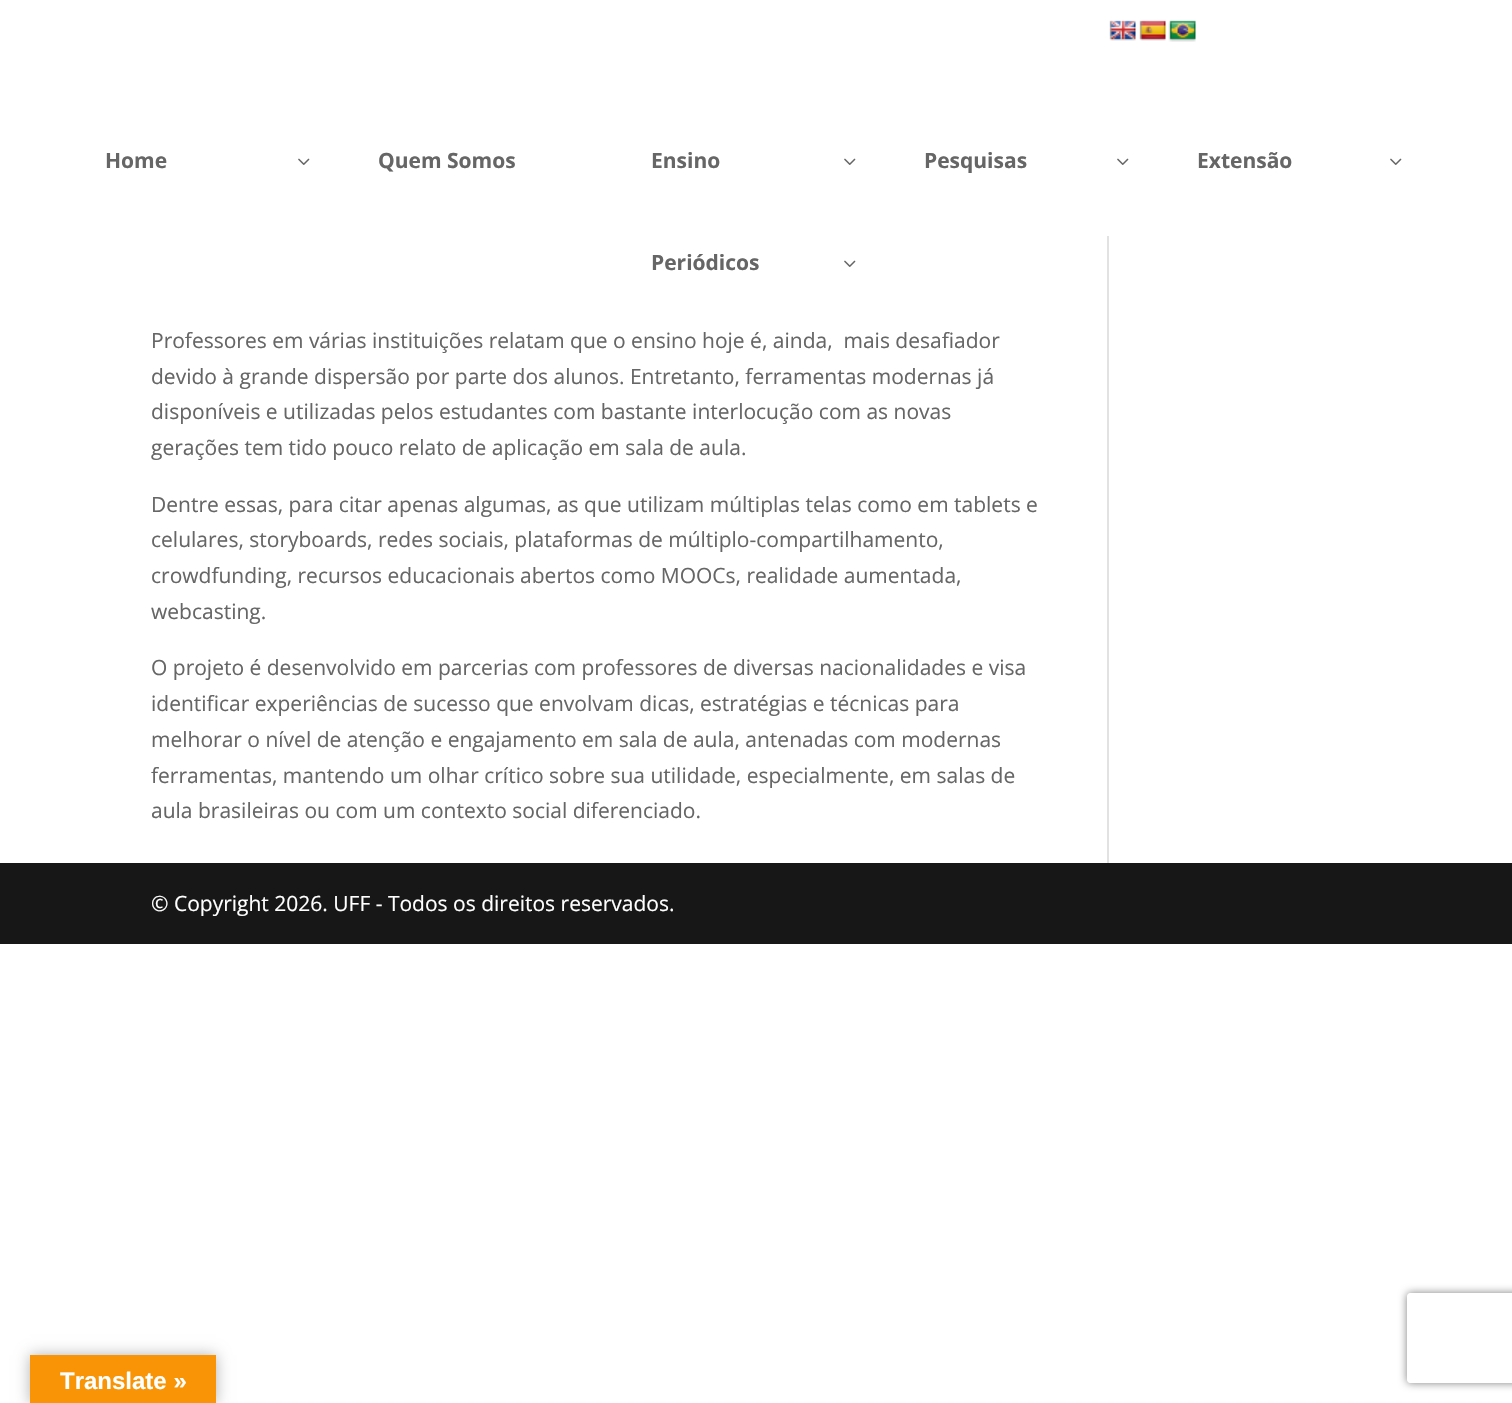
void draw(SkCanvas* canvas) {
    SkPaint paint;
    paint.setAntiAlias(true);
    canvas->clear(0xFFFFFFFF);
    canvas->drawImageRect(SkImages::DeferredFromEncodedData(SkData::MakeFromFileName("img1.png")), SkRect::MakeXYWH(1109, 20, 27, 21), SkSamplingOptions());
    canvas->drawImageRect(SkImages::DeferredFromEncodedData(SkData::MakeFromFileName("img2.png")), SkRect::MakeXYWH(1139, 20, 27, 21), SkSamplingOptions());
    canvas->drawImageRect(SkImages::DeferredFromEncodedData(SkData::MakeFromFileName("img3.png")), SkRect::MakeXYWH(1168, 20, 28, 22), SkSamplingOptions());
    SkFont font1(fontMgr->matchFamilyStyle("Open Sans", SkFontStyle::Bold()), 21);
    font1.setSubpixel(true);
    paint.setColor(0xFF666666);
    canvas->drawString("Home", 105, 168, font1, paint);
    canvas->drawImageRect(SkImages::DeferredFromEncodedData(SkData::MakeFromFileName("img4.png")), SkRect::MakeXYWH(298, 158, 12, 7), SkSamplingOptions());
    canvas->drawString("Quem Somos", 378, 168, font1, paint);
    canvas->drawString("Ensino", 651, 168, font1, paint);
    canvas->drawImageRect(SkImages::DeferredFromEncodedData(SkData::MakeFromFileName("img4.png")), SkRect::MakeXYWH(844, 158, 12, 7), SkSamplingOptions());
    canvas->drawString("Pesquisas", 924, 168, font1, paint);
    canvas->drawImageRect(SkImages::DeferredFromEncodedData(SkData::MakeFromFileName("img4.png")), SkRect::MakeXYWH(1117, 158, 12, 7), SkSamplingOptions());
    canvas->drawString("Extensão", 1197, 168, font1, paint);
    canvas->drawImageRect(SkImages::DeferredFromEncodedData(SkData::MakeFromFileName("img4.png")), SkRect::MakeXYWH(1390, 158, 12, 7), SkSamplingOptions());
    canvas->drawString("Periódicos", 651, 270, font1, paint);
    canvas->drawImageRect(SkImages::DeferredFromEncodedData(SkData::MakeFromFileName("img4.png")), SkRect::MakeXYWH(844, 260, 12, 7), SkSamplingOptions());
    SkFont font2(fontMgr->matchFamilyStyle("Open Sans", SkFontStyle::Normal()), 21);
    font2.setSubpixel(true);
    canvas->drawString("Professores em várias instituições relatam que o ensino hoje é, ainda,  mais desafiador", 151, 348, font2, paint);
    canvas->drawString("devido à grande dispersão por parte dos alunos. Entretanto, ferramentas modernas já", 151, 384, font2, paint);
    canvas->drawString("disponíveis e utilizadas pelos estudantes com bastante interlocução com as novas", 151, 419, font2, paint);
    canvas->drawString("gerações tem tido pouco relato de aplicação em sala de aula.", 151, 455, font2, paint);
    canvas->drawString("Dentre essas, para citar apenas algumas, as que utilizam múltiplas telas como em tablets e", 151, 512, font2, paint);
    canvas->drawString("celulares, storyboards, redes sociais, plataformas de múltiplo-compartilhamento,", 151, 547, font2, paint);
    canvas->drawString("crowdfunding, recursos educacionais abertos como MOOCs, realidade aumentada,", 151, 583, font2, paint);
    canvas->drawString("webcasting.", 151, 619, font2, paint);
    canvas->drawString("O projeto é desenvolvido em parcerias com professores de diversas nacionalidades e visa", 151, 675, font2, paint);
    canvas->drawString("identificar experiências de sucesso que envolvam dicas, estratégias e técnicas para", 151, 711, font2, paint);
    canvas->drawString("melhorar o nível de atenção e engajamento em sala de aula, antenadas com modernas", 151, 747, font2, paint);
    canvas->drawString("ferramentas, mantendo um olhar crítico sobre sua utilidade, especialmente, em salas de", 151, 783, font2, paint);
    canvas->drawString("aula brasileiras ou com um contexto social diferenciado.", 151, 818, font2, paint);
    paint.setColor(0xFFE2E2E2);
    canvas->drawRect(SkRect::MakeXYWH(1107, 236, 2, 627), paint);
    paint.setColor(0xFF171717);
    canvas->drawRect(SkRect::MakeXYWH(0, 863, 1512, 81), paint);
    paint.setColor(0xFFFFFFFF);
    canvas->drawString("© Copyright 2026. UFF - Todos os direitos reservados.", 151, 911, font2, paint);
    paint.setColor(0x4D000000);
    paint.setMaskFilter(SkMaskFilter::MakeBlur(kNormal_SkBlurStyle, 7));
    canvas->drawRect(SkRect::MakeXYWH(30, 1355, 186, 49), paint);
    paint.setMaskFilter(nullptr);
    paint.setColor(0xFFF89406);
    canvas->drawRect(SkRect::MakeXYWH(30, 1355, 186, 48), paint);
    SkFont font3(fontMgr->matchFamilyStyle("Liberation Sans", SkFontStyle::Bold()), 24);
    font3.setSubpixel(true);
    paint.setColor(0xFFFFFFFF);
    canvas->drawString("Translate »", 60, 1389, font3, paint);
    canvas->save();
    canvas->clipPath(SkPathBuilder(SkPathFillType::kEvenOdd).moveTo(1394, 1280).lineTo(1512, 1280).lineTo(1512, 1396).lineTo(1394, 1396).close().moveTo(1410, 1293).lineTo(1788, 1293).cubicTo(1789.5f, 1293, 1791, 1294.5f, 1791, 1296).lineTo(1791, 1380).cubicTo(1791, 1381.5f, 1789.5f, 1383, 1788, 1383).lineTo(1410, 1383).cubicTo(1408.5f, 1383, 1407, 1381.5f, 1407, 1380).lineTo(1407, 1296).cubicTo(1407, 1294.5f, 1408.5f, 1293, 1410, 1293).close().detach(), true);
    paint.setColor(0xFF808080);
    paint.setMaskFilter(SkMaskFilter::MakeBlur(kNormal_SkBlurStyle, 4));
    canvas->drawRoundRect(SkRect::MakeXYWH(1407, 1293, 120, 90), 3, 3, paint);
    paint.setMaskFilter(nullptr);
    canvas->restore();
}
